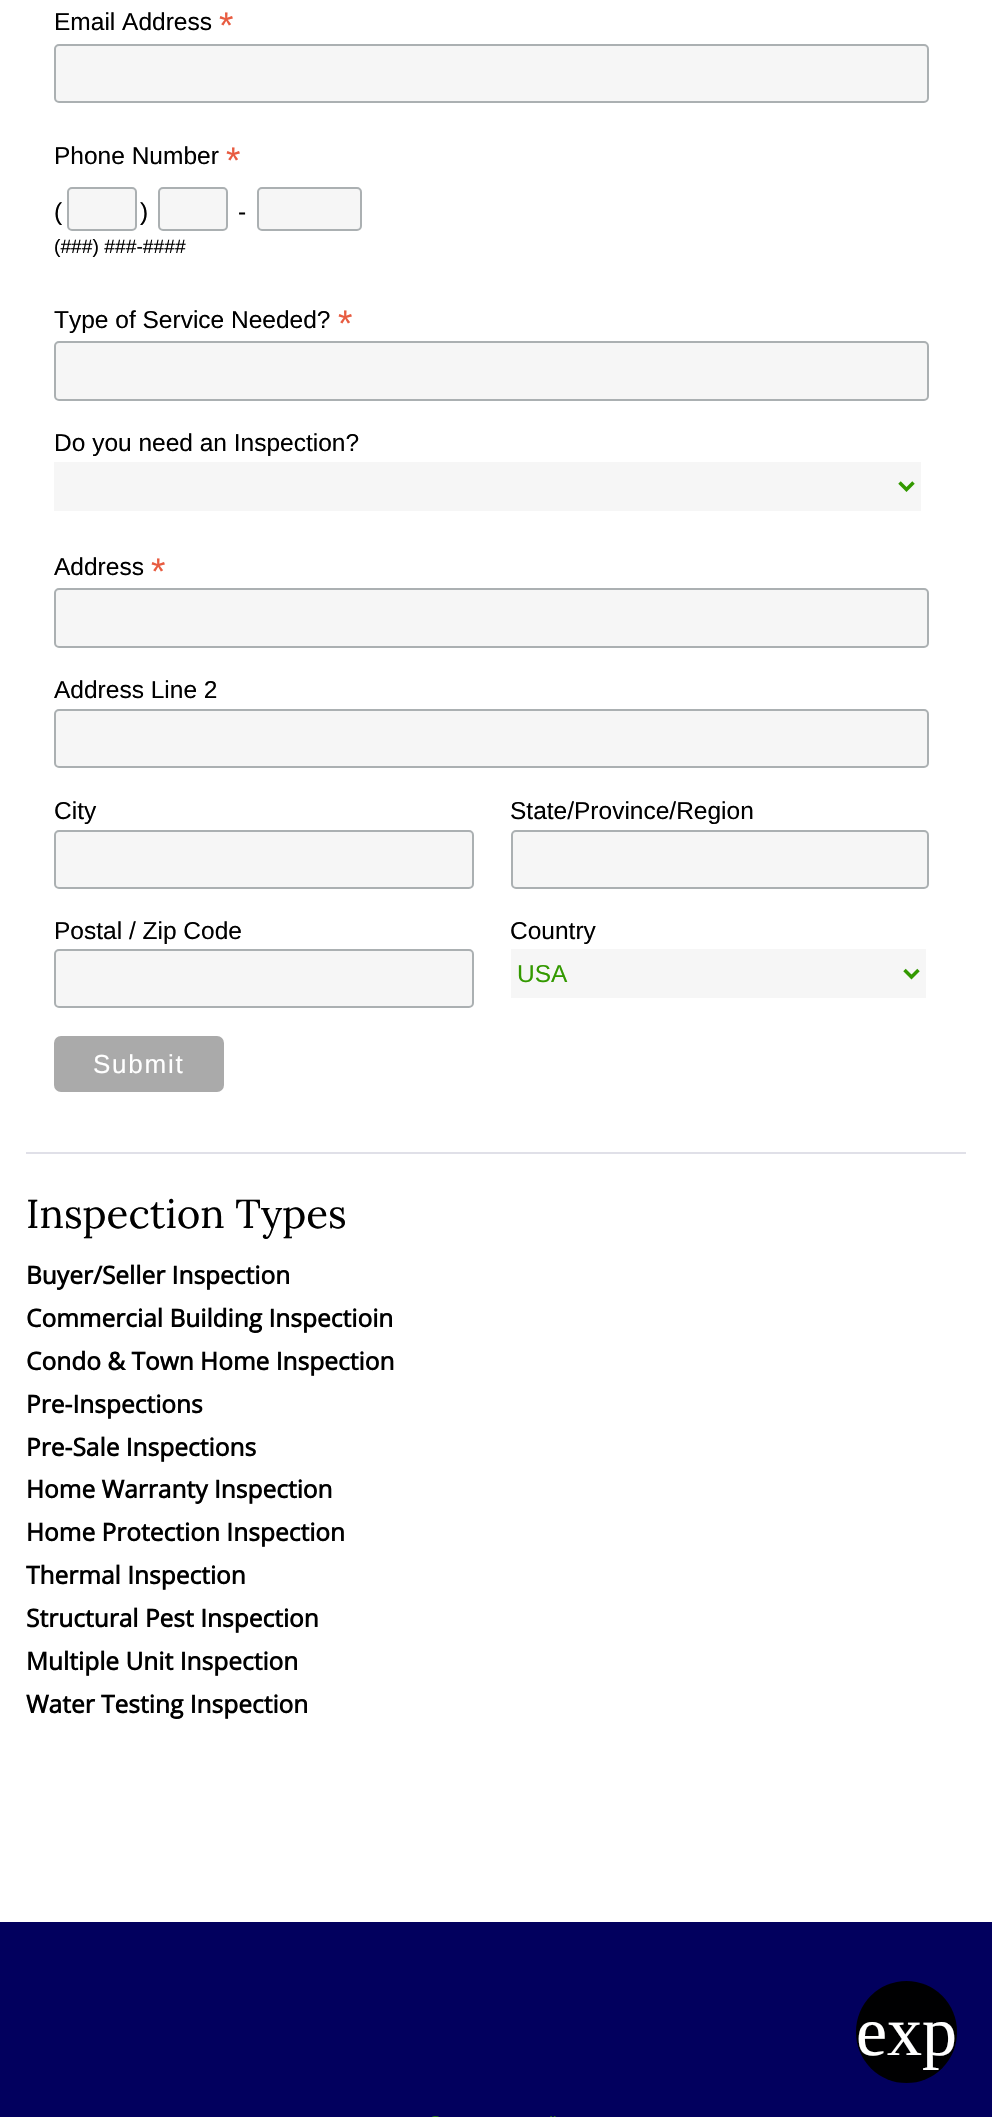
void draw(SkCanvas* canvas) {
    SkPaint paint;
    paint.setAntiAlias(true);
    auto spacedText = [&](const char* s, float x, float y, const SkFont& font, const SkPaint& ink, float letter, float word) {
        std::vector<SkGlyphID> glyphs(font.countText(s, strlen(s), SkTextEncoding::kUTF8));
        std::vector<float> xs(glyphs.size());
        font.textToGlyphs(s, strlen(s), SkTextEncoding::kUTF8, glyphs);
        font.getXPos(glyphs, xs, x);
        float extra = 0;
        for (size_t i = 0; i < glyphs.size(); i++) {
            xs[i] += extra;
            extra += letter + word * (glyphs[i] == font.unicharToGlyph(' '));
        }
        canvas->drawTextBlob(SkTextBlob::MakeFromPosHGlyphs(glyphs, xs, y, font), 0, 0, ink);
    };
    canvas->clear(0xFFFFFFFF);
    SkFont font1(fontMgr->matchFamilyStyle("Liberation Sans", SkFontStyle::Normal()), 24.5f);
    font1.setSubpixel(true);
    paint.setColor(0xFF000000);
    canvas->drawString("Email Address", 54, 30, font1, paint);
    SkFont font2(fontMgr->matchFamilyStyle("Liberation Sans", SkFontStyle::Normal()), 37);
    font2.setSubpixel(true);
    paint.setColor(0xFFE85C41);
    canvas->drawString("*", 219, 38, font2, paint);
    paint.setColor(0xFFF6F6F6);
    canvas->drawRoundRect(SkRect::MakeXYWH(55, 45, 873, 57), 4, 4, paint);
    paint.setStyle(SkPaint::kStroke_Style);
    paint.setStrokeWidth(2);
    paint.setColor(0xFFABB0B2);
    canvas->drawRoundRect(SkRect::MakeXYWH(55, 45, 873, 57), 4, 4, paint);
    paint.setStyle(SkPaint::kFill_Style);
    paint.setColor(0xFF000000);
    canvas->drawString("Phone Number", 54, 164, font1, paint);
    paint.setColor(0xFFE85C41);
    canvas->drawString("*", 226, 173, font2, paint);
    paint.setColor(0xFF000000);
    canvas->drawString("(", 54, 220, font1, paint);
    paint.setColor(0xFFF6F6F6);
    canvas->drawRoundRect(SkRect::MakeXYWH(68, 188, 68, 42), 4, 4, paint);
    paint.setStyle(SkPaint::kStroke_Style);
    paint.setColor(0xFFABB0B2);
    canvas->drawRoundRect(SkRect::MakeXYWH(68, 188, 68, 42), 4, 4, paint);
    paint.setStyle(SkPaint::kFill_Style);
    paint.setColor(0xFF000000);
    canvas->drawString(")", 140, 220, font1, paint);
    paint.setColor(0xFFF6F6F6);
    canvas->drawRoundRect(SkRect::MakeXYWH(159, 188, 68, 42), 4, 4, paint);
    paint.setStyle(SkPaint::kStroke_Style);
    paint.setColor(0xFFABB0B2);
    canvas->drawRoundRect(SkRect::MakeXYWH(159, 188, 68, 42), 4, 4, paint);
    paint.setStyle(SkPaint::kFill_Style);
    paint.setColor(0xFF000000);
    canvas->drawString("-", 238, 220, font1, paint);
    paint.setColor(0xFFF6F6F6);
    canvas->drawRoundRect(SkRect::MakeXYWH(258, 188, 103, 42), 4, 4, paint);
    paint.setStyle(SkPaint::kStroke_Style);
    paint.setColor(0xFFABB0B2);
    canvas->drawRoundRect(SkRect::MakeXYWH(258, 188, 103, 42), 4, 4, paint);
    SkFont font3(fontMgr->matchFamilyStyle("Liberation Sans", SkFontStyle::Normal()), 19.25f);
    font3.setSubpixel(true);
    paint.setStyle(SkPaint::kFill_Style);
    paint.setColor(0xFF000000);
    canvas->drawString("(###) ###-####", 54, 253, font3, paint);
    canvas->drawString("Type of Service Needed?", 54, 328, font1, paint);
    paint.setColor(0xFFE85C41);
    canvas->drawString("*", 338, 336, font2, paint);
    paint.setColor(0xFFF6F6F6);
    canvas->drawRoundRect(SkRect::MakeXYWH(55, 342, 873, 58), 4, 4, paint);
    paint.setStyle(SkPaint::kStroke_Style);
    paint.setColor(0xFFABB0B2);
    canvas->drawRoundRect(SkRect::MakeXYWH(55, 342, 873, 58), 4, 4, paint);
    paint.setStyle(SkPaint::kFill_Style);
    paint.setColor(0xFF000000);
    canvas->drawString("Do you need an Inspection?", 54, 451, font1, paint);
    paint.setColor(0xFFF6F6F6);
    canvas->drawRect(SkRect::MakeXYWH(54, 462, 867, 49), paint);
    paint.setStyle(SkPaint::kStroke_Style);
    paint.setStrokeWidth(3.5f);
    paint.setColor(0xFF339900);
    canvas->drawPath(SkPathBuilder().moveTo(899.5f, 482.5f).lineTo(906.5f, 489.5f).lineTo(913.5f, 482.5f).detach(), paint);
    paint.setStyle(SkPaint::kFill_Style);
    paint.setColor(0xFF000000);
    canvas->drawString("Address", 54, 575, font1, paint);
    paint.setColor(0xFFE85C41);
    canvas->drawString("*", 151, 584, font2, paint);
    paint.setColor(0xFFF6F6F6);
    canvas->drawRoundRect(SkRect::MakeXYWH(55, 589, 873, 58), 4, 4, paint);
    paint.setStyle(SkPaint::kStroke_Style);
    paint.setStrokeWidth(2);
    paint.setColor(0xFFABB0B2);
    canvas->drawRoundRect(SkRect::MakeXYWH(55, 589, 873, 58), 4, 4, paint);
    paint.setStyle(SkPaint::kFill_Style);
    paint.setColor(0xFF000000);
    canvas->drawString("Address Line 2", 54, 698, font1, paint);
    paint.setColor(0xFFF6F6F6);
    canvas->drawRoundRect(SkRect::MakeXYWH(55, 710, 873, 57), 4, 4, paint);
    paint.setStyle(SkPaint::kStroke_Style);
    paint.setColor(0xFFABB0B2);
    canvas->drawRoundRect(SkRect::MakeXYWH(55, 710, 873, 57), 4, 4, paint);
    paint.setStyle(SkPaint::kFill_Style);
    paint.setColor(0xFF000000);
    canvas->drawString("City", 54, 819, font1, paint);
    paint.setColor(0xFFF6F6F6);
    canvas->drawRoundRect(SkRect::MakeXYWH(55, 831, 418, 57), 4, 4, paint);
    paint.setStyle(SkPaint::kStroke_Style);
    paint.setColor(0xFFABB0B2);
    canvas->drawRoundRect(SkRect::MakeXYWH(55, 831, 418, 57), 4, 4, paint);
    paint.setStyle(SkPaint::kFill_Style);
    paint.setColor(0xFF000000);
    canvas->drawString("State/Province/Region", 510, 819, font1, paint);
    paint.setColor(0xFFF6F6F6);
    canvas->drawRoundRect(SkRect::MakeXYWH(512, 831, 416, 57), 4, 4, paint);
    paint.setStyle(SkPaint::kStroke_Style);
    paint.setColor(0xFFABB0B2);
    canvas->drawRoundRect(SkRect::MakeXYWH(512, 831, 416, 57), 4, 4, paint);
    paint.setStyle(SkPaint::kFill_Style);
    paint.setColor(0xFF000000);
    canvas->drawString("Postal / Zip Code", 54, 939, font1, paint);
    paint.setColor(0xFFF6F6F6);
    canvas->drawRoundRect(SkRect::MakeXYWH(55, 950, 418, 57), 4, 4, paint);
    paint.setStyle(SkPaint::kStroke_Style);
    paint.setColor(0xFFABB0B2);
    canvas->drawRoundRect(SkRect::MakeXYWH(55, 950, 418, 57), 4, 4, paint);
    paint.setStyle(SkPaint::kFill_Style);
    paint.setColor(0xFF000000);
    canvas->drawString("Country", 510, 939, font1, paint);
    paint.setColor(0xFFF6F6F6);
    canvas->drawRect(SkRect::MakeXYWH(511, 949, 415, 49), paint);
    paint.setStyle(SkPaint::kStroke_Style);
    paint.setStrokeWidth(3.5f);
    paint.setColor(0xFF339900);
    canvas->drawPath(SkPathBuilder().moveTo(904.5f, 970).lineTo(911.5f, 977).lineTo(918.5f, 970).detach(), paint);
    paint.setStyle(SkPaint::kFill_Style);
    canvas->drawString("USA", 517, 982, font1, paint);
    paint.setColor(0xFFAAAAAA);
    canvas->drawRoundRect(SkRect::MakeXYWH(54, 1036, 170, 56), 7, 7, paint);
    SkFont font4(fontMgr->matchFamilyStyle("Liberation Sans", SkFontStyle::Normal()), 26);
    font4.setSubpixel(true);
    paint.setColor(0xFFFFFFFF);
    spacedText("Submit", 93, 1073, font4, paint, 1.75f, 0);
    paint.setColor(0xFFE0E0E8);
    canvas->drawRect(SkRect::MakeXYWH(26, 1152, 940, 2), paint);
    SkFont font5(fontMgr->matchFamilyStyle("Lora", SkFontStyle::Normal()), 40.25f);
    font5.setSubpixel(true);
    paint.setColor(0xFF000000);
    canvas->drawString("Inspection Types", 26, 1228, font5, paint);
    SkFont font6(fontMgr->matchFamilyStyle("Open Sans", SkFontStyle::Bold()), 24.5f);
    font6.setSubpixel(true);
    canvas->drawString("Buyer/Seller Inspection", 26, 1284, font6, paint);
    canvas->drawString("Commercial Building Inspectioin", 26, 1327, font6, paint);
    canvas->drawString("Condo & Town Home Inspection", 26, 1370, font6, paint);
    canvas->drawString("Pre-Inspections", 26, 1413, font6, paint);
    canvas->drawString("Pre-Sale Inspections", 26, 1456, font6, paint);
    canvas->drawString("Home Warranty Inspection", 26, 1498, font6, paint);
    canvas->drawString("Home Protection Inspection", 26, 1541, font6, paint);
    canvas->drawString("Thermal Inspection", 26, 1584, font6, paint);
    canvas->drawString("Structural Pest Inspection", 26, 1627, font6, paint);
    canvas->drawString("Multiple Unit Inspection", 26, 1670, font6, paint);
    canvas->drawString("Water Testing Inspection", 26, 1713, font6, paint);
    paint.setColor(0xFF02005E);
    canvas->drawRect(SkRect::MakeXYWH(0, 1922, 992, 195), paint);
    canvas->drawImageRect(SkImages::DeferredFromEncodedData(SkData::MakeFromFileName("img1.png")), SkRect::MakeXYWH(432, 2116, 7, 1), SkSamplingOptions());
    canvas->drawImageRect(SkImages::DeferredFromEncodedData(SkData::MakeFromFileName("img2.png")), SkRect::MakeXYWH(550, 2116, 6, 1), SkSamplingOptions());
    paint.setColor(0xFF000001);
    canvas->drawRoundRect(SkRect::MakeXYWH(856, 1981, 101, 102), 50.5f, 50.5f, paint);
    SkFont font7(fontMgr->matchFamilyStyle("Liberation Serif", SkFontStyle::Normal()), 70);
    font7.setSubpixel(true);
    paint.setColor(0xFFFFFFFF);
    canvas->drawString("exp", 856, 2055, font7, paint);
}
